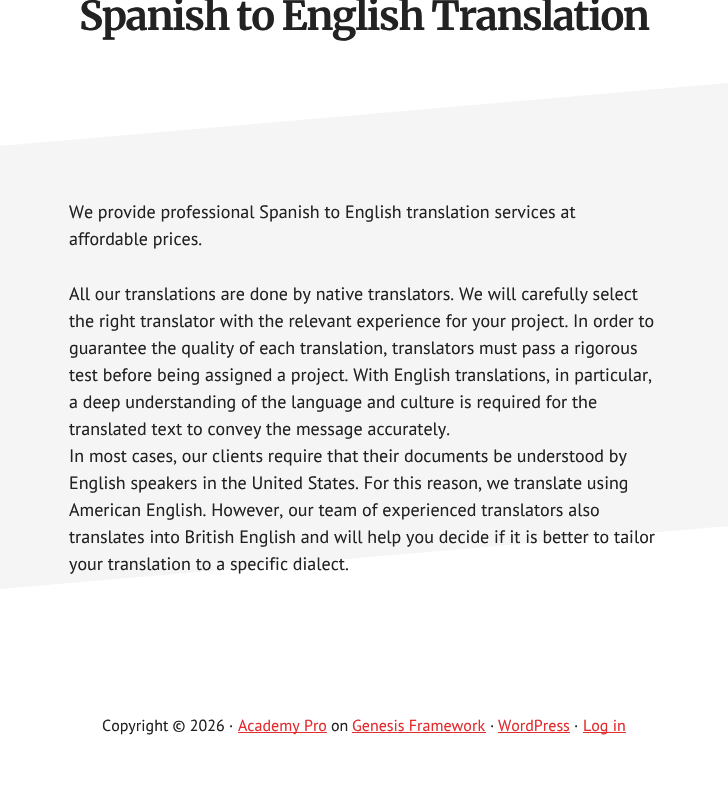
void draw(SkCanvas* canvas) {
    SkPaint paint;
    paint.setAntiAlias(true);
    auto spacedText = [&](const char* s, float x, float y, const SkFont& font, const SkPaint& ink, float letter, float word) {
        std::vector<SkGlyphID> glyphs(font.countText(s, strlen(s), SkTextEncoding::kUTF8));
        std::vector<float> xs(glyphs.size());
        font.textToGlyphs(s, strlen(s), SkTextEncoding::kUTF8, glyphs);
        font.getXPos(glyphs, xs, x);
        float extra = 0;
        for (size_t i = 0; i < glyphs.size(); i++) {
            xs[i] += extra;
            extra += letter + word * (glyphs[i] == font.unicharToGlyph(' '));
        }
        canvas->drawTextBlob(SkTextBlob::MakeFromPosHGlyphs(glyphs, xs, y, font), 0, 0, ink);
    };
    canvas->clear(0xFFFFFFFF);
    SkFont font1(fontMgr->matchFamilyStyle("Merriweather", SkFontStyle::Bold()), 40);
    font1.setSubpixel(true);
    paint.setColor(0xFF222222);
    spacedText("Spanish to English Translation", 79, 30, font1, paint, -1.5f, 0);
    paint.setColor(0xFFF5F5F5);
    canvas->drawPath(SkPathBuilder().moveTo(0, 146).lineTo(728, 83).lineTo(728, 414).lineTo(0, 478).close().detach(), paint);
    canvas->drawPath(SkPathBuilder().moveTo(0, 258).lineTo(728, 194).lineTo(728, 526).lineTo(0, 589).close().detach(), paint);
    SkFont font2(fontMgr->matchFamilyStyle("PT Sans", SkFontStyle::Normal()), 18);
    font2.setSubpixel(true);
    paint.setColor(0xFF222222);
    canvas->drawString("We provide professional Spanish to English translation services at", 69, 218, font2, paint);
    canvas->drawString("affordable prices.", 69, 245, font2, paint);
    canvas->drawString("All our translations are done by native translators. We will carefully select", 69, 300, font2, paint);
    canvas->drawString("the right translator with the relevant experience for your project. In order to", 69, 327, font2, paint);
    canvas->drawString("guarantee the quality of each translation, translators must pass a rigorous", 69, 354, font2, paint);
    canvas->drawString("test before being assigned a project. With English translations, in particular,", 69, 381, font2, paint);
    canvas->drawString("a deep understanding of the language and culture is required for the", 69, 408, font2, paint);
    canvas->drawString("translated text to convey the message accurately.", 69, 435, font2, paint);
    canvas->drawString("In most cases, our clients require that their documents be understood by", 69, 462, font2, paint);
    canvas->drawString("English speakers in the United States. For this reason, we translate using", 69, 489, font2, paint);
    canvas->drawString("American English. However, our team of experienced translators also", 69, 516, font2, paint);
    canvas->drawString("translates into British English and will help you decide if it is better to tailor", 69, 543, font2, paint);
    canvas->drawString("your translation to a specific dialect.", 69, 570, font2, paint);
    SkFont font3(fontMgr->matchFamilyStyle("PT Sans", SkFontStyle::Normal()), 16);
    font3.setSubpixel(true);
    canvas->drawString("Copyright © 2026 ·", 102, 731, font3, paint);
    paint.setColor(0xFFE22C2F);
    canvas->drawRect(SkRect::MakeXYWH(238, 732, 89, 1), paint);
    canvas->drawString("Academy Pro", 238, 731, font3, paint);
    paint.setColor(0xFF222222);
    canvas->drawString("on", 331, 731, font3, paint);
    paint.setColor(0xFFE22C2F);
    canvas->drawString("Genesis Framework", 352, 731, font3, paint);
    canvas->drawRect(SkRect::MakeXYWH(352, 732, 134, 1), paint);
    paint.setColor(0xFF222222);
    canvas->drawString("·", 490, 731, font3, paint);
    paint.setColor(0xFFE22C2F);
    canvas->drawString("WordPress", 498, 731, font3, paint);
    canvas->drawRect(SkRect::MakeXYWH(498, 732, 72, 1), paint);
    paint.setColor(0xFF222222);
    canvas->drawString("·", 574, 731, font3, paint);
    paint.setColor(0xFFE22C2F);
    canvas->drawRect(SkRect::MakeXYWH(583, 732, 43, 1), paint);
    canvas->drawString("Log in", 583, 731, font3, paint);
}
